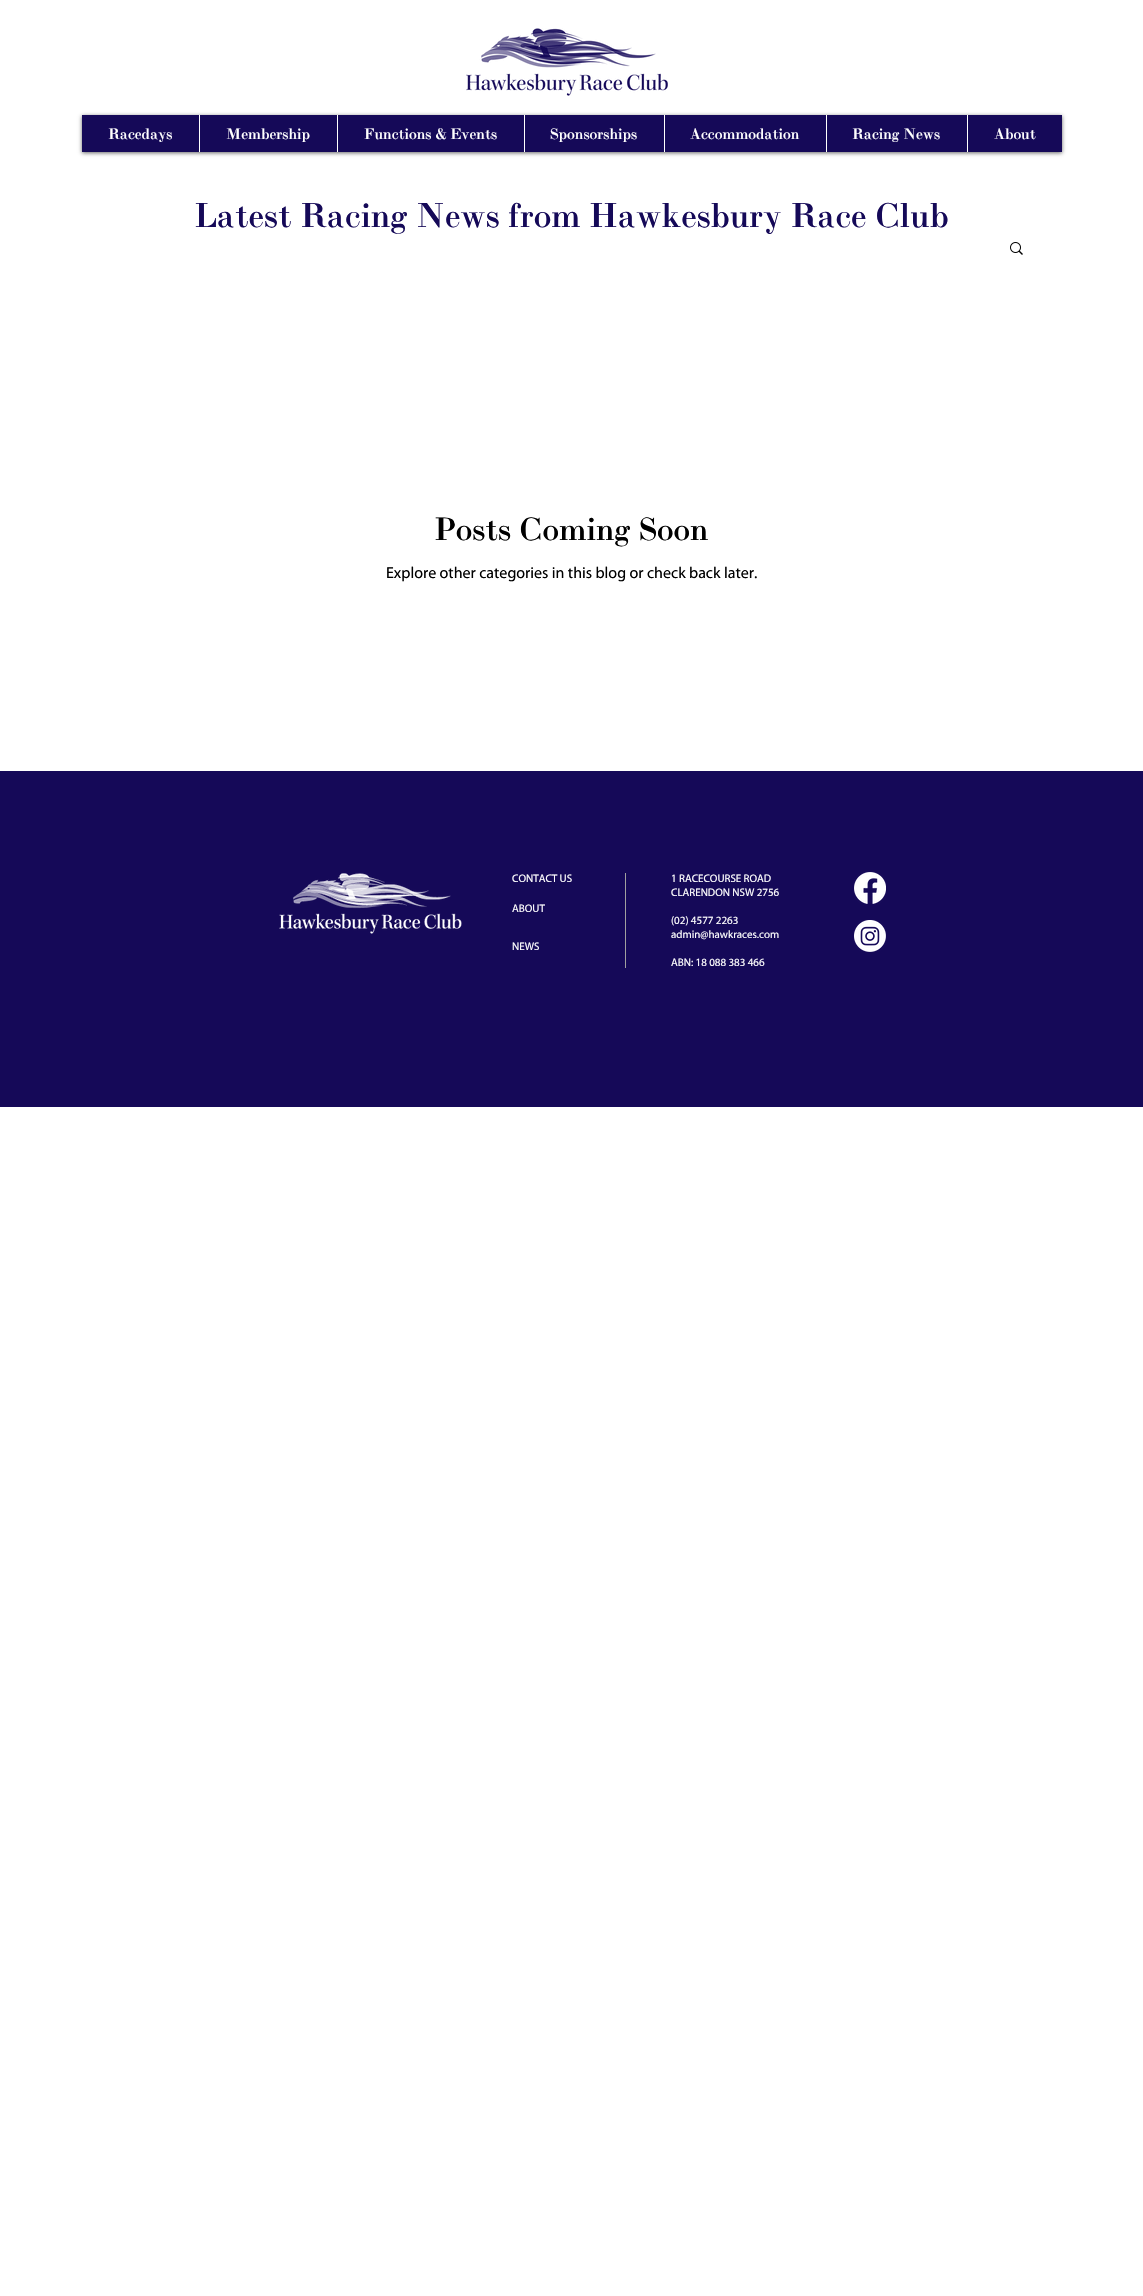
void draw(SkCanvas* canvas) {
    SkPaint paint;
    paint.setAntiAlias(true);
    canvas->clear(0xFFFFFFFF);
    canvas->drawImageRect(SkImages::DeferredFromEncodedData(SkData::MakeFromFileName("img1.png")), SkRect::MakeXYWH(466, 28, 202, 68), SkSamplingOptions());
    paint.setColor(0x99000000);
    paint.setMaskFilter(SkMaskFilter::MakeBlur(kNormal_SkBlurStyle, 2));
    canvas->drawRect(SkRect::MakeXYWH(82, 116, 980, 37), paint);
    paint.setMaskFilter(nullptr);
    paint.setColor(0xFF150958);
    canvas->drawRect(SkRect::MakeXYWH(82, 115, 980, 37), paint);
    SkFont font1(fontMgr->matchFamilyStyle("Bodoni", SkFontStyle::Bold()), 15);
    font1.setSubpixel(true);
    paint.setColor(0xFFFFFFFF);
    canvas->drawString("Racedays", 108, 139, font1, paint);
    canvas->drawRect(SkRect::MakeXYWH(199, 115, 1, 37), paint);
    canvas->drawString("Membership", 226, 139, font1, paint);
    canvas->drawRect(SkRect::MakeXYWH(337, 115, 1, 37), paint);
    canvas->drawString("Functions & Events", 364, 139, font1, paint);
    canvas->drawRect(SkRect::MakeXYWH(524, 115, 1, 37), paint);
    canvas->drawString("Sponsorships", 550, 139, font1, paint);
    canvas->drawRect(SkRect::MakeXYWH(664, 115, 1, 37), paint);
    canvas->drawString("Accommodation", 690, 139, font1, paint);
    canvas->drawRect(SkRect::MakeXYWH(826, 115, 1, 37), paint);
    canvas->drawString("Racing News", 852, 139, font1, paint);
    canvas->drawRect(SkRect::MakeXYWH(967, 115, 1, 37), paint);
    canvas->drawString("About", 994, 139, font1, paint);
    SkFont font2(fontMgr->matchFamilyStyle("Bodoni", SkFontStyle::Bold()), 34);
    font2.setSubpixel(true);
    paint.setColor(0xFF150958);
    canvas->drawString("Latest Racing News from Hawkesbury Race Club", 194, 227, font2, paint);
    canvas->drawImageRect(SkImages::DeferredFromEncodedData(SkData::MakeFromFileName("img2.png")), SkRect::MakeXYWH(1010, 242, 13, 13), SkSamplingOptions());
    SkFont font3(fontMgr->matchFamilyStyle("Bodoni", SkFontStyle::Bold()), 32);
    font3.setSubpixel(true);
    paint.setColor(0xFF000000);
    canvas->drawString("Posts Coming Soon", 434, 540, font3, paint);
    SkFont font4(fontMgr->matchFamilyStyle("Myriad", SkFontStyle::Normal()), 16);
    font4.setSubpixel(true);
    canvas->drawString("Explore other categories in this blog or check back later.", 386, 578, font4, paint);
    paint.setColor(0xFF150958);
    canvas->drawRect(SkRect::MakeXYWH(0, 771, 1143, 336), paint);
    canvas->drawImageRect(SkImages::DeferredFromEncodedData(SkData::MakeFromFileName("img3.png")), SkRect::MakeXYWH(279, 873, 183, 61), SkSamplingOptions());
    SkFont font5(fontMgr->matchFamilyStyle("Myriad", SkFontStyle::Normal()), 11);
    font5.setSubpixel(true);
    paint.setColor(0xFFFFFFFF);
    canvas->drawString("CONTACT US", 512, 882, font5, paint);
    paint.setColor(0xFFA0A09F);
    canvas->drawRect(SkRect::MakeXYWH(625, 873, 1, 95), paint);
    paint.setColor(0xFFFFFFFF);
    canvas->drawString("1 RACECOURSE ROAD", 671, 882, font5, paint);
    canvas->drawString("CLARENDON NSW 2756", 671, 896, font5, paint);
    canvas->drawString("(02) 4577 2263", 671, 924, font5, paint);
    canvas->drawString("admin@hawkraces.com", 671, 938, font5, paint);
    canvas->drawString("ABN: 18 088 383 466", 671, 966, font5, paint);
    canvas->drawImageRect(SkImages::DeferredFromEncodedData(SkData::MakeFromFileName("img4.png")), SkRect::MakeXYWH(854, 872, 32, 32), SkSamplingOptions());
    canvas->drawImageRect(SkImages::DeferredFromEncodedData(SkData::MakeFromFileName("img5.png")), SkRect::MakeXYWH(854, 920, 32, 32), SkSamplingOptions());
    canvas->drawString("ABOUT", 512, 912, font5, paint);
    canvas->drawString("NEWS", 512, 950, font5, paint);
}
